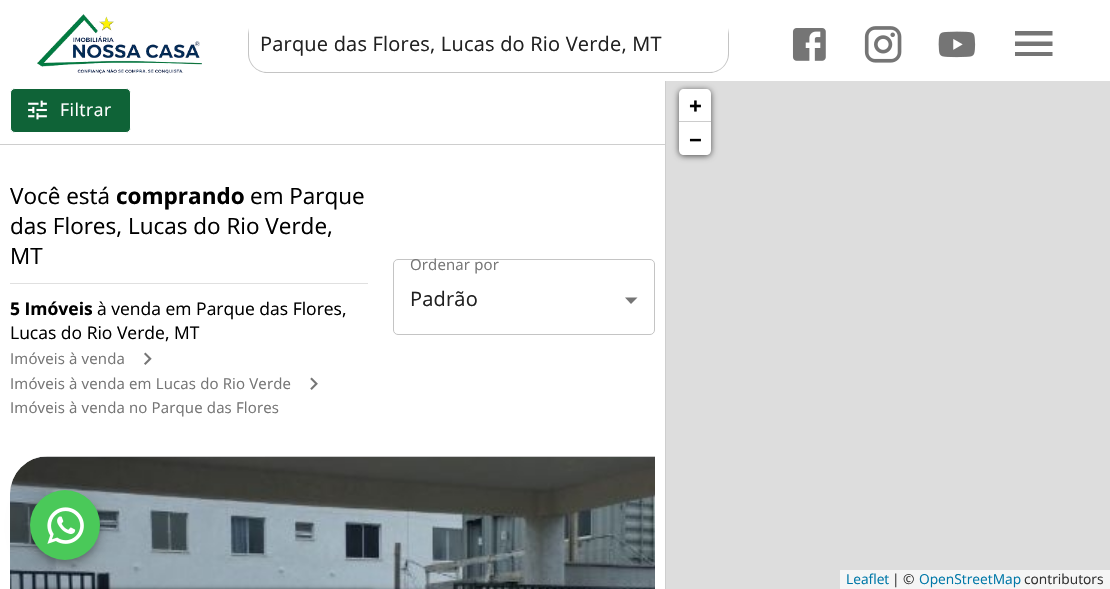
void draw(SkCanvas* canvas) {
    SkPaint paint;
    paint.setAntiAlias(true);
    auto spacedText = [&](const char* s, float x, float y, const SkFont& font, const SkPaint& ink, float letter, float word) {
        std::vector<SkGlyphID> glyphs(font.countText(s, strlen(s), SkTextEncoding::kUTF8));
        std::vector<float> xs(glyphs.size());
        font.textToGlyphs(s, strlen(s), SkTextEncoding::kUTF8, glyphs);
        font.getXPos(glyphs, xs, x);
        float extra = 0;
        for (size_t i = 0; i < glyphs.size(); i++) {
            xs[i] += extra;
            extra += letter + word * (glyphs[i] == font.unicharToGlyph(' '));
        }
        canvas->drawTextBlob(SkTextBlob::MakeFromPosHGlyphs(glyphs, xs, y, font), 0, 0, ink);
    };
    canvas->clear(0xFFFFFFFF);
    paint.setColor(0xFFCECECE);
    canvas->drawRect(SkRect::MakeXYWH(665, 76, 1, 513), paint);
    paint.setColor(0xFFFFFFFF);
    canvas->drawRect(SkRect::MakeXYWH(665, 76, 1, 5), paint);
    canvas->drawImageRect(SkImages::DeferredFromEncodedData(SkData::MakeFromFileName("img1.png")), SkRect::MakeXYWH(37, 14, 165, 60), SkSamplingOptions());
    SkFont font1(fontMgr->matchFamilyStyle("Open Sans", SkFontStyle::Normal()), 20);
    font1.setSubpixel(true);
    paint.setColor(0xFF212121);
    spacedText("Parque das Flores, Lucas do Rio Verde, MT", 260, 51, font1, paint, 0.2f, 0);
    paint.setColor(0xFFC4C4C4);
    canvas->drawPath(SkPathBuilder().moveTo(248, 34).lineTo(248, 54).cubicTo(248, 64, 257, 73, 267, 73).lineTo(710, 73).cubicTo(720, 73, 729, 64, 729, 54).lineTo(729, 34).lineTo(728, 28).lineTo(728, 54).cubicTo(728, 64, 720, 72, 710, 72).lineTo(267, 72).cubicTo(257, 72, 249, 64, 249, 54).lineTo(249, 28).close().detach(), paint);
    canvas->drawImageRect(SkImages::DeferredFromEncodedData(SkData::MakeFromFileName("img2.png")), SkRect::MakeXYWH(792, 28, 34, 33), SkSamplingOptions());
    canvas->drawImageRect(SkImages::DeferredFromEncodedData(SkData::MakeFromFileName("img3.png")), SkRect::MakeXYWH(864, 26, 38, 37), SkSamplingOptions());
    canvas->drawImageRect(SkImages::DeferredFromEncodedData(SkData::MakeFromFileName("img4.png")), SkRect::MakeXYWH(938, 31, 38, 27), SkSamplingOptions());
    paint.setColor(0xFF757575);
    canvas->drawPath(SkPathBuilder().moveTo(1015, 56).lineTo(1052.5f, 56).lineTo(1052.5f, 52).lineTo(1015, 52).close().moveTo(1015, 46).lineTo(1052.5f, 46).lineTo(1052.5f, 41.5f).lineTo(1015, 41.5f).close().moveTo(1015, 31).lineTo(1015, 35.5f).lineTo(1052.5f, 35.5f).lineTo(1052.5f, 31).close().detach(), paint);
    paint.setColor(0xFFCECECE);
    canvas->drawRect(SkRect::MakeXYWH(0, 144, 665, 1), paint);
    paint.setColor(0xFF0F6337);
    canvas->drawRoundRect(SkRect::MakeXYWH(10.5f, 88.5f, 120, 44), 4.5f, 4.5f, paint);
    paint.setStyle(SkPaint::kStroke_Style);
    paint.setStrokeWidth(1);
    paint.setColor(0xFFFFFFFF);
    canvas->drawRoundRect(SkRect::MakeXYWH(10.5f, 88.5f, 120, 44), 4.5f, 4.5f, paint);
    canvas->drawImageRect(SkImages::DeferredFromEncodedData(SkData::MakeFromFileName("img5.png")), SkRect::MakeXYWH(28, 100, 19, 20), SkSamplingOptions());
    SkFont font2(fontMgr->matchFamilyStyle("Open Sans", SkFontStyle::Normal()), 17.5f);
    font2.setSubpixel(true);
    paint.setStyle(SkPaint::kFill_Style);
    spacedText("Filtrar", 60, 116, font2, paint, 0.5f, 0);
    SkFont font3(fontMgr->matchFamilyStyle("Open Sans", SkFontStyle::Normal()), 22.5f);
    font3.setSubpixel(true);
    paint.setColor(0xFF000000);
    canvas->drawString("Você está", 10, 204, font3, paint);
    SkFont font4(fontMgr->matchFamilyStyle("Open Sans", SkFontStyle::Bold()), 22.5f);
    font4.setSubpixel(true);
    canvas->drawString("comprando", 116, 204, font4, paint);
    canvas->drawString("em Parque", 250, 204, font3, paint);
    canvas->drawString("das Flores, Lucas do Rio Verde,", 10, 234, font3, paint);
    canvas->drawString("MT", 10, 264, font3, paint);
    paint.setColor(0xFFE0E0E0);
    canvas->drawRect(SkRect::MakeXYWH(10, 283, 358, 1), paint);
    SkFont font5(fontMgr->matchFamilyStyle("Open Sans", SkFontStyle::Bold()), 17.5f);
    font5.setSubpixel(true);
    paint.setColor(0xFF000000);
    canvas->drawString("5 Imóveis", 10, 315, font5, paint);
    canvas->drawString("à venda em Parque das Flores,", 97, 315, font2, paint);
    canvas->drawString("Lucas do Rio Verde, MT", 10, 339, font2, paint);
    SkFont font6(fontMgr->matchFamilyStyle("Open Sans", SkFontStyle::Normal()), 15);
    font6.setSubpixel(true);
    paint.setColor(0xFF757575);
    spacedText("Imóveis à venda", 10, 364, font6, paint, 0.15f, 0);
    canvas->drawImageRect(SkImages::DeferredFromEncodedData(SkData::MakeFromFileName("img6.png")), SkRect::MakeXYWH(144, 352, 8, 13), SkSamplingOptions());
    spacedText("Imóveis à venda em Lucas do Rio Verde", 10, 389, font6, paint, 0.15f, 0);
    canvas->drawImageRect(SkImages::DeferredFromEncodedData(SkData::MakeFromFileName("img7.png")), SkRect::MakeXYWH(310, 377, 8, 13), SkSamplingOptions());
    spacedText("Imóveis à venda no Parque das Flores", 10, 413, font6, paint, 0.15f, 0);
    canvas->drawPath(SkPathBuilder().moveTo(625, 297.5f).lineTo(631, 304).lineTo(637.5f, 297.5f).close().detach(), paint);
    paint.setStyle(SkPaint::kStroke_Style);
    paint.setColor(0xFFC4C4C4);
    canvas->drawRoundRect(SkRect::MakeXYWH(393.5f, 259.5f, 261, 75), 4.5f, 4.5f, paint);
    paint.setStyle(SkPaint::kFill_Style);
    paint.setColor(0xFF757575);
    spacedText("Ordenar por", 410, 270, font6, paint, 0.15f, 0);
    paint.setColor(0xFF212121);
    spacedText("Padrão", 410, 306, font1, paint, 0.2f, 0);
    paint.setColor(0xFFD7D7D7);
    canvas->drawPath(SkPathBuilder().moveTo(48, 456).lineTo(655, 456).lineTo(655, 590).lineTo(10, 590).lineTo(10, 494).cubicTo(10, 473, 27, 456, 48, 456).close().detach(), paint);
    canvas->drawImageRect(SkImages::DeferredFromEncodedData(SkData::MakeFromFileName("img8.png")), SkRect::MakeXYWH(10, 456, 645, 133), SkSamplingOptions());
    paint.setColor(0xFFDDDDDD);
    canvas->drawRect(SkRect::MakeXYWH(666, 81, 444, 508), paint);
    paint.setColor(0xA6000000);
    paint.setMaskFilter(SkMaskFilter::MakeBlur(kNormal_SkBlurStyle, 3));
    canvas->drawRoundRect(SkRect::MakeXYWH(679, 90, 32, 66), 5, 5, paint);
    paint.setMaskFilter(nullptr);
    paint.setColor(0xFFFFFFFF);
    canvas->drawPath(SkPathBuilder().moveTo(684, 89).lineTo(706, 89).cubicTo(709, 89, 711, 91, 711, 94).lineTo(711, 123).lineTo(679, 123).lineTo(679, 94).cubicTo(679, 91, 681, 89, 684, 89).close().detach(), paint);
    paint.setColor(0xFFCCCCCC);
    canvas->drawRect(SkRect::MakeXYWH(679, 121, 32, 1), paint);
    paint.setColor(0xFF000000);
    canvas->drawString("+", 689, 114, font4, paint);
    paint.setColor(0xFFFFFFFF);
    canvas->drawPath(SkPathBuilder().moveTo(679, 123).lineTo(711, 123).lineTo(711, 150).cubicTo(711, 153, 709, 155, 706, 155).lineTo(684, 155).cubicTo(681, 155, 679, 153, 679, 150).close().detach(), paint);
    paint.setColor(0xFF000000);
    canvas->drawString("−", 689, 148, font4, paint);
    paint.setColor(0xFFF5F5F5);
    canvas->drawRect(SkRect::MakeXYWH(840, 570, 270, 19), paint);
    SkFont font7(fontMgr->matchFamilyStyle("Open Sans", SkFontStyle::Normal()), 13.75f);
    font7.setSubpixel(true);
    paint.setColor(0xFF0078A8);
    canvas->drawString("Leaflet", 846, 584, font7, paint);
    paint.setColor(0xFF333333);
    canvas->drawString("| ©", 892, 584, font7, paint);
    paint.setColor(0xFF0078A8);
    canvas->drawString("OpenStreetMap", 919, 584, font7, paint);
    paint.setColor(0xFF333333);
    canvas->drawString("contributors", 1024, 584, font7, paint);
    paint.setColor(0x1F000000);
    paint.setMaskFilter(SkMaskFilter::MakeBlur(kNormal_SkBlurStyle, 11));
    canvas->drawRoundRect(SkRect::MakeXYWH(30, 491, 70, 70), 35, 35, paint);
    paint.setMaskFilter(nullptr);
    paint.setColor(0x24000000);
    paint.setMaskFilter(SkMaskFilter::MakeBlur(kNormal_SkBlurStyle, 6));
    canvas->drawRoundRect(SkRect::MakeXYWH(30, 498, 70, 70), 35, 35, paint);
    paint.setMaskFilter(nullptr);
    paint.setColor(0x33000000);
    paint.setMaskFilter(SkMaskFilter::MakeBlur(kNormal_SkBlurStyle, 3));
    canvas->drawRoundRect(SkRect::MakeXYWH(31, 495, 68, 68), 34, 34, paint);
    paint.setMaskFilter(nullptr);
    paint.setColor(0xFF4AC959);
    canvas->drawCircle(65, 525, 35, paint);
    canvas->drawImageRect(SkImages::DeferredFromEncodedData(SkData::MakeFromFileName("img9.png")), SkRect::MakeXYWH(47, 507, 37, 37), SkSamplingOptions());
    paint.setColor(0x66000000);
    paint.setMaskFilter(SkMaskFilter::MakeBlur(kNormal_SkBlurStyle, 2.5f));
    canvas->drawRoundRect(SkRect::MakeXYWH(29, 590, 347, 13), 6, 6, paint);
    paint.setMaskFilter(nullptr);
    paint.setMaskFilter(SkMaskFilter::MakeBlur(kNormal_SkBlurStyle, 2.5f));
    canvas->drawRoundRect(SkRect::MakeXYWH(29, 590, 562, 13), 6, 6, paint);
    paint.setMaskFilter(nullptr);
}
